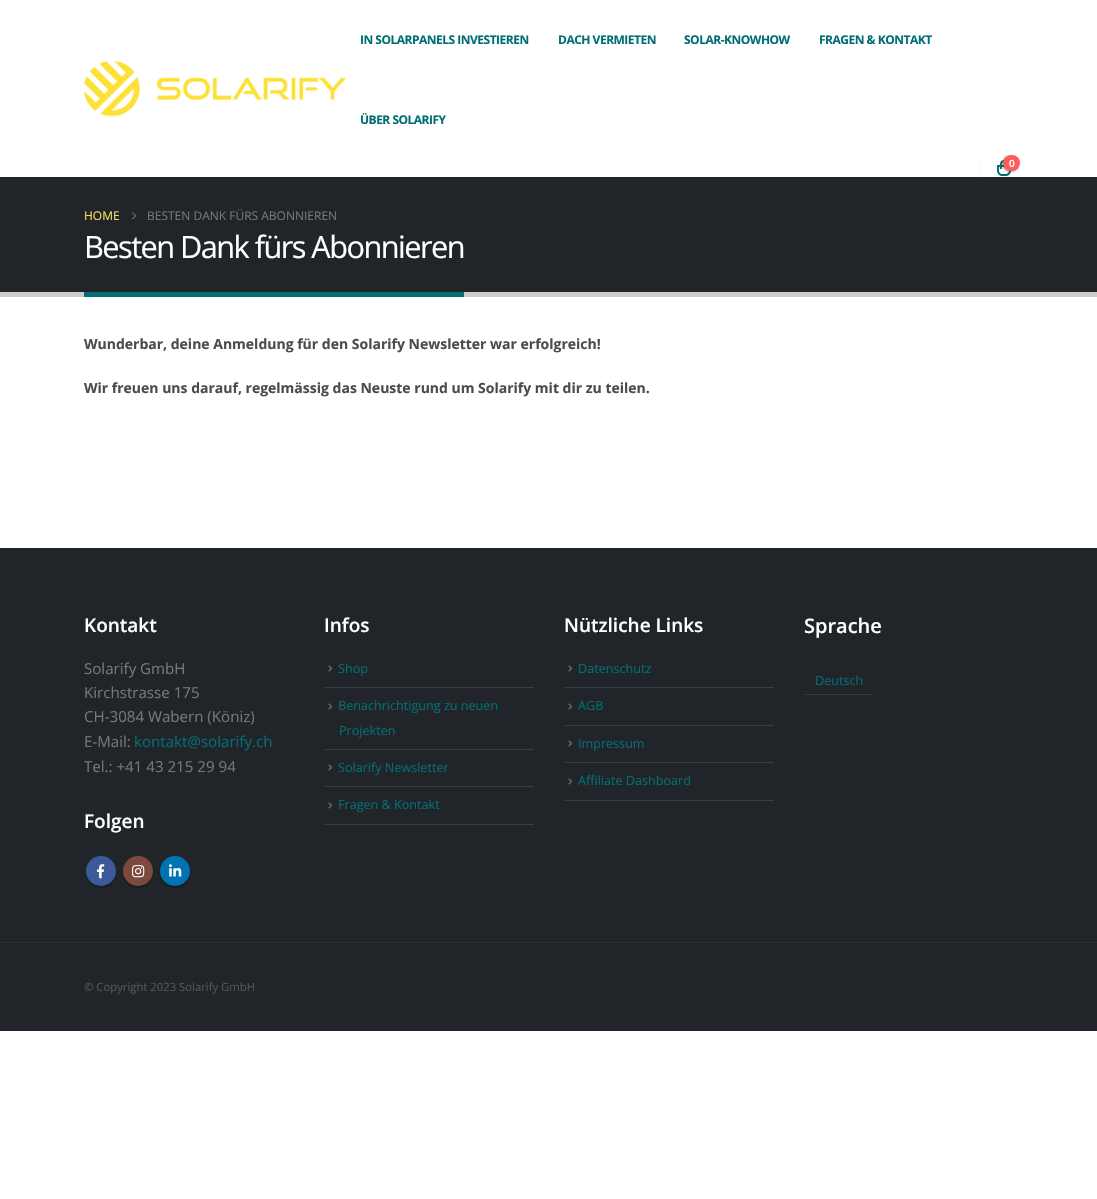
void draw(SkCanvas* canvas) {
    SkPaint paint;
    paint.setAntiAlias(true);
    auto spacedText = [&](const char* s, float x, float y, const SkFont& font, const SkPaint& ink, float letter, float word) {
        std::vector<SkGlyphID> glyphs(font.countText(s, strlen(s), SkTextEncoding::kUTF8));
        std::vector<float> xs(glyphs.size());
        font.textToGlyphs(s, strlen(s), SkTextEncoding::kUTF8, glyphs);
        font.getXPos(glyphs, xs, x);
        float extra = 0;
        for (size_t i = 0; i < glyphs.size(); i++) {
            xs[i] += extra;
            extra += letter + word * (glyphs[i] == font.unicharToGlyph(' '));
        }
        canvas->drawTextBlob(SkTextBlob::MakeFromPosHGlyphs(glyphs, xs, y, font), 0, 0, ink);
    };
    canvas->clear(0xFFFFFFFF);
    canvas->drawImageRect(SkImages::DeferredFromEncodedData(SkData::MakeFromFileName("img1.png")), SkRect::MakeXYWH(83, 60, 263, 57), SkSamplingOptions());
    SkFont font1(fontMgr->matchFamilyStyle("Open Sans", SkFontStyle::Bold()), 12);
    font1.setSubpixel(true);
    paint.setColor(0xFF006F75);
    spacedText("IN SOLARPANELS INVESTIEREN", 360, 44, font1, paint, -0.5f, 0);
    spacedText("DACH VERMIETEN", 558, 44, font1, paint, -0.5f, 0);
    spacedText("SOLAR-KNOWHOW", 684, 44, font1, paint, -0.5f, 0);
    spacedText("FRAGEN & KONTAKT", 819, 44, font1, paint, -0.5f, 0);
    spacedText("ÜBER SOLARIFY", 360, 124, font1, paint, -0.5f, 0);
    paint.setColor(0xFFF5F5F5);
    canvas->drawRect(SkRect::MakeXYWH(979, 160, 1, 17), paint);
    paint.setStyle(SkPaint::kStroke_Style);
    paint.setStrokeWidth(2);
    paint.setColor(0xFF006F75);
    canvas->drawPath(SkPathBuilder().moveTo(998, 166).lineTo(1010, 166).lineTo(1010, 171).cubicTo(1010, 173, 1008, 175, 1006, 175).lineTo(1002, 175).cubicTo(1000, 175, 998, 173, 998, 171).close().detach(), paint);
    paint.setStyle(SkPaint::kFill_Style);
    canvas->drawPath(SkPathBuilder(SkPathFillType::kEvenOdd).moveTo(1004, 160).cubicTo(1009, 160, 1008, 166, 1008, 169).lineTo(1000, 169).cubicTo(1000, 166, 999, 160, 1004, 160).close().moveTo(1004, 162).cubicTo(1007, 162, 1006, 167, 1006, 169).lineTo(1002, 169).cubicTo(1002, 167, 1001, 162, 1004, 162).close().detach(), paint);
    paint.setColor(0x4D000000);
    paint.setMaskFilter(SkMaskFilter::MakeBlur(kNormal_SkBlurStyle, 1));
    canvas->drawRoundRect(SkRect::MakeXYWH(1002, 156, 17, 16), 8, 8, paint);
    paint.setMaskFilter(nullptr);
    paint.setColor(0xFFFF5B5B);
    canvas->drawRoundRect(SkRect::MakeXYWH(1003, 155, 17, 16), 8, 8, paint);
    SkFont font2(fontMgr->matchFamilyStyle("Open Sans", SkFontStyle(600, SkFontStyle::kNormal_Width, SkFontStyle::kUpright_Slant)), 10);
    font2.setSubpixel(true);
    paint.setColor(0xFFFFFFFF);
    canvas->drawString("0", 1009, 167, font2, paint);
    paint.setColor(0xFF212529);
    canvas->drawRect(SkRect::MakeXYWH(0, 177, 1097, 115), paint);
    paint.setColor(0xFFCCCCCC);
    canvas->drawRect(SkRect::MakeXYWH(0, 292, 1097, 5), paint);
    SkFont font3(fontMgr->matchFamilyStyle("Open Sans", SkFontStyle::Normal()), 12);
    font3.setSubpixel(true);
    paint.setColor(0xFFF7DD5F);
    canvas->drawString("HOME", 84, 220, font3, paint);
    canvas->drawImageRect(SkImages::DeferredFromEncodedData(SkData::MakeFromFileName("img2.png")), SkRect::MakeXYWH(132, 212, 5, 8), SkSamplingOptions());
    paint.setColor(0xFF777777);
    canvas->drawString("BESTEN DANK FÜRS ABONNIEREN", 147, 220, font3, paint);
    SkFont font4(fontMgr->matchFamilyStyle("Open Sans", SkFontStyle::Normal()), 30.75f);
    font4.setSubpixel(true);
    paint.setColor(0xFFFFFFFF);
    spacedText("Besten Dank fürs Abonnieren", 84, 258, font4, paint, -1.55f, 0);
    paint.setColor(0xFF006F75);
    canvas->drawRect(SkRect::MakeXYWH(84, 292, 380, 5), paint);
    SkFont font5(fontMgr->matchFamilyStyle("Open Sans", SkFontStyle::Bold()), 14);
    font5.setSubpixel(true);
    paint.setColor(0xFF4C4C4C);
    canvas->drawString("Wunderbar, deine Anmeldung für den Solarify Newsletter war erfolgreich!", 84, 349, font5, paint);
    canvas->drawString("Wir freuen uns darauf, regelmässig das Neuste rund um Solarify mit dir zu teilen.", 84, 393, font5, paint);
    paint.setColor(0xFF212529);
    canvas->drawRect(SkRect::MakeXYWH(0, 548, 1097, 483), paint);
    SkFont font6(fontMgr->matchFamilyStyle("Open Sans", SkFontStyle(600, SkFontStyle::kNormal_Width, SkFontStyle::kUpright_Slant)), 19);
    font6.setSubpixel(true);
    paint.setColor(0xFFFFFFFF);
    canvas->drawString("Kontakt", 84, 632, font6, paint);
    SkFont font7(fontMgr->matchFamilyStyle("Open Sans", SkFontStyle::Normal()), 15.1f);
    font7.setSubpixel(true);
    paint.setColor(0xFF777777);
    canvas->drawString("Solarify GmbH", 84, 674, font7, paint);
    canvas->drawString("Kirchstrasse 175", 84, 698, font7, paint);
    canvas->drawString("CH-3084 Wabern (Köniz)", 84, 722, font7, paint);
    canvas->drawString("E-Mail:", 84, 747, font7, paint);
    paint.setColor(0xFF006F75);
    canvas->drawString("kontakt@solarify.ch", 134, 747, font7, paint);
    paint.setColor(0xFF777777);
    canvas->drawString("Tel.: +41 43 215 29 94", 84, 772, font7, paint);
    paint.setColor(0xFFFFFFFF);
    canvas->drawString("Folgen", 84, 828, font6, paint);
    paint.setColor(0x4D000000);
    paint.setMaskFilter(SkMaskFilter::MakeBlur(kNormal_SkBlurStyle, 1));
    canvas->drawRoundRect(SkRect::MakeXYWH(86, 858, 30, 30), 15, 15, paint);
    paint.setMaskFilter(nullptr);
    paint.setColor(0xFF3B5A9A);
    canvas->drawCircle(101, 871, 15, paint);
    canvas->drawImageRect(SkImages::DeferredFromEncodedData(SkData::MakeFromFileName("img3.png")), SkRect::MakeXYWH(97, 864, 8, 15), SkSamplingOptions());
    paint.setColor(0x4D000000);
    paint.setMaskFilter(SkMaskFilter::MakeBlur(kNormal_SkBlurStyle, 1));
    canvas->drawRoundRect(SkRect::MakeXYWH(123, 858, 30, 30), 15, 15, paint);
    paint.setMaskFilter(nullptr);
    paint.setColor(0xFF7C4A3A);
    canvas->drawCircle(138, 871, 15, paint);
    canvas->drawImageRect(SkImages::DeferredFromEncodedData(SkData::MakeFromFileName("img4.png")), SkRect::MakeXYWH(132, 865, 13, 13), SkSamplingOptions());
    paint.setColor(0x4D000000);
    paint.setMaskFilter(SkMaskFilter::MakeBlur(kNormal_SkBlurStyle, 1));
    canvas->drawRoundRect(SkRect::MakeXYWH(160, 858, 30, 30), 15, 15, paint);
    paint.setMaskFilter(nullptr);
    paint.setColor(0xFF0073B2);
    canvas->drawCircle(175, 871, 15, paint);
    canvas->drawImageRect(SkImages::DeferredFromEncodedData(SkData::MakeFromFileName("img5.png")), SkRect::MakeXYWH(169, 864, 13, 13), SkSamplingOptions());
    paint.setColor(0xFFFFFFFF);
    canvas->drawString("Infos", 324, 632, font6, paint);
    paint.setColor(0xFF3B3E40);
    canvas->drawRect(SkRect::MakeXYWH(324, 824, 210, 1), paint);
    canvas->drawImageRect(SkImages::DeferredFromEncodedData(SkData::MakeFromFileName("img6.png")), SkRect::MakeXYWH(328, 665, 4, 7), SkSamplingOptions());
    SkFont font8(fontMgr->matchFamilyStyle("Open Sans", SkFontStyle::Normal()), 12.6f);
    font8.setSubpixel(true);
    paint.setColor(0xFF006F75);
    canvas->drawString("Shop", 338, 673, font8, paint);
    paint.setColor(0xFF3B3E40);
    canvas->drawRect(SkRect::MakeXYWH(324, 687, 210, 1), paint);
    canvas->drawImageRect(SkImages::DeferredFromEncodedData(SkData::MakeFromFileName("img6.png")), SkRect::MakeXYWH(328, 703, 4, 7), SkSamplingOptions());
    paint.setColor(0xFF006F75);
    canvas->drawString("Benachrichtigung zu neuen", 338, 710, font8, paint);
    canvas->drawString("Projekten", 339, 735, font8, paint);
    paint.setColor(0xFF3B3E40);
    canvas->drawRect(SkRect::MakeXYWH(324, 749, 210, 1), paint);
    canvas->drawImageRect(SkImages::DeferredFromEncodedData(SkData::MakeFromFileName("img6.png")), SkRect::MakeXYWH(328, 764, 4, 7), SkSamplingOptions());
    paint.setColor(0xFF006F75);
    canvas->drawString("Solarify Newsletter", 338, 772, font8, paint);
    paint.setColor(0xFF3B3E40);
    canvas->drawRect(SkRect::MakeXYWH(324, 786, 210, 1), paint);
    canvas->drawImageRect(SkImages::DeferredFromEncodedData(SkData::MakeFromFileName("img6.png")), SkRect::MakeXYWH(328, 802, 4, 7), SkSamplingOptions());
    paint.setColor(0xFF006F75);
    canvas->drawString("Fragen & Kontakt", 338, 809, font8, paint);
    paint.setColor(0xFFFFFFFF);
    canvas->drawString("Nützliche Links", 564, 632, font6, paint);
    paint.setColor(0xFF3B3E40);
    canvas->drawRect(SkRect::MakeXYWH(564, 800, 210, 1), paint);
    canvas->drawImageRect(SkImages::DeferredFromEncodedData(SkData::MakeFromFileName("img6.png")), SkRect::MakeXYWH(568, 665, 4, 7), SkSamplingOptions());
    paint.setColor(0xFF006F75);
    canvas->drawString("Datenschutz", 578, 673, font8, paint);
    paint.setColor(0xFF3B3E40);
    canvas->drawRect(SkRect::MakeXYWH(564, 687, 210, 1), paint);
    canvas->drawImageRect(SkImages::DeferredFromEncodedData(SkData::MakeFromFileName("img6.png")), SkRect::MakeXYWH(568, 703, 4, 7), SkSamplingOptions());
    paint.setColor(0xFF006F75);
    canvas->drawString("AGB", 578, 710, font8, paint);
    paint.setColor(0xFF3B3E40);
    canvas->drawRect(SkRect::MakeXYWH(564, 725, 210, 1), paint);
    canvas->drawImageRect(SkImages::DeferredFromEncodedData(SkData::MakeFromFileName("img6.png")), SkRect::MakeXYWH(568, 740, 4, 7), SkSamplingOptions());
    paint.setColor(0xFF006F75);
    canvas->drawString("Impressum", 578, 748, font8, paint);
    paint.setColor(0xFF3B3E40);
    canvas->drawRect(SkRect::MakeXYWH(564, 762, 210, 1), paint);
    canvas->drawImageRect(SkImages::DeferredFromEncodedData(SkData::MakeFromFileName("img6.png")), SkRect::MakeXYWH(568, 778, 4, 7), SkSamplingOptions());
    paint.setColor(0xFF006F75);
    canvas->drawString("Affiliate Dashboard", 578, 785, font8, paint);
    SkFont font9(fontMgr->matchFamilyStyle("Open Sans", SkFontStyle(600, SkFontStyle::kNormal_Width, SkFontStyle::kUpright_Slant)), 20);
    font9.setSubpixel(true);
    paint.setColor(0xFFFFFFFF);
    canvas->drawString("Sprache", 804, 633, font9, paint);
    paint.setColor(0xFF3B3E40);
    canvas->drawRect(SkRect::MakeXYWH(805, 694, 68, 1), paint);
    paint.setColor(0xFF006F75);
    canvas->drawString("Deutsch", 815, 685, font8, paint);
    paint.setColor(0xFF2C3034);
    canvas->drawRect(SkRect::MakeXYWH(0, 942, 1097, 1), paint);
    SkFont font10(fontMgr->matchFamilyStyle("Open Sans", SkFontStyle::Normal()), 11.3f);
    font10.setSubpixel(true);
    paint.setColor(0xFF555555);
    canvas->drawString("© Copyright 2023 Solarify GmbH", 84, 991, font10, paint);
}
